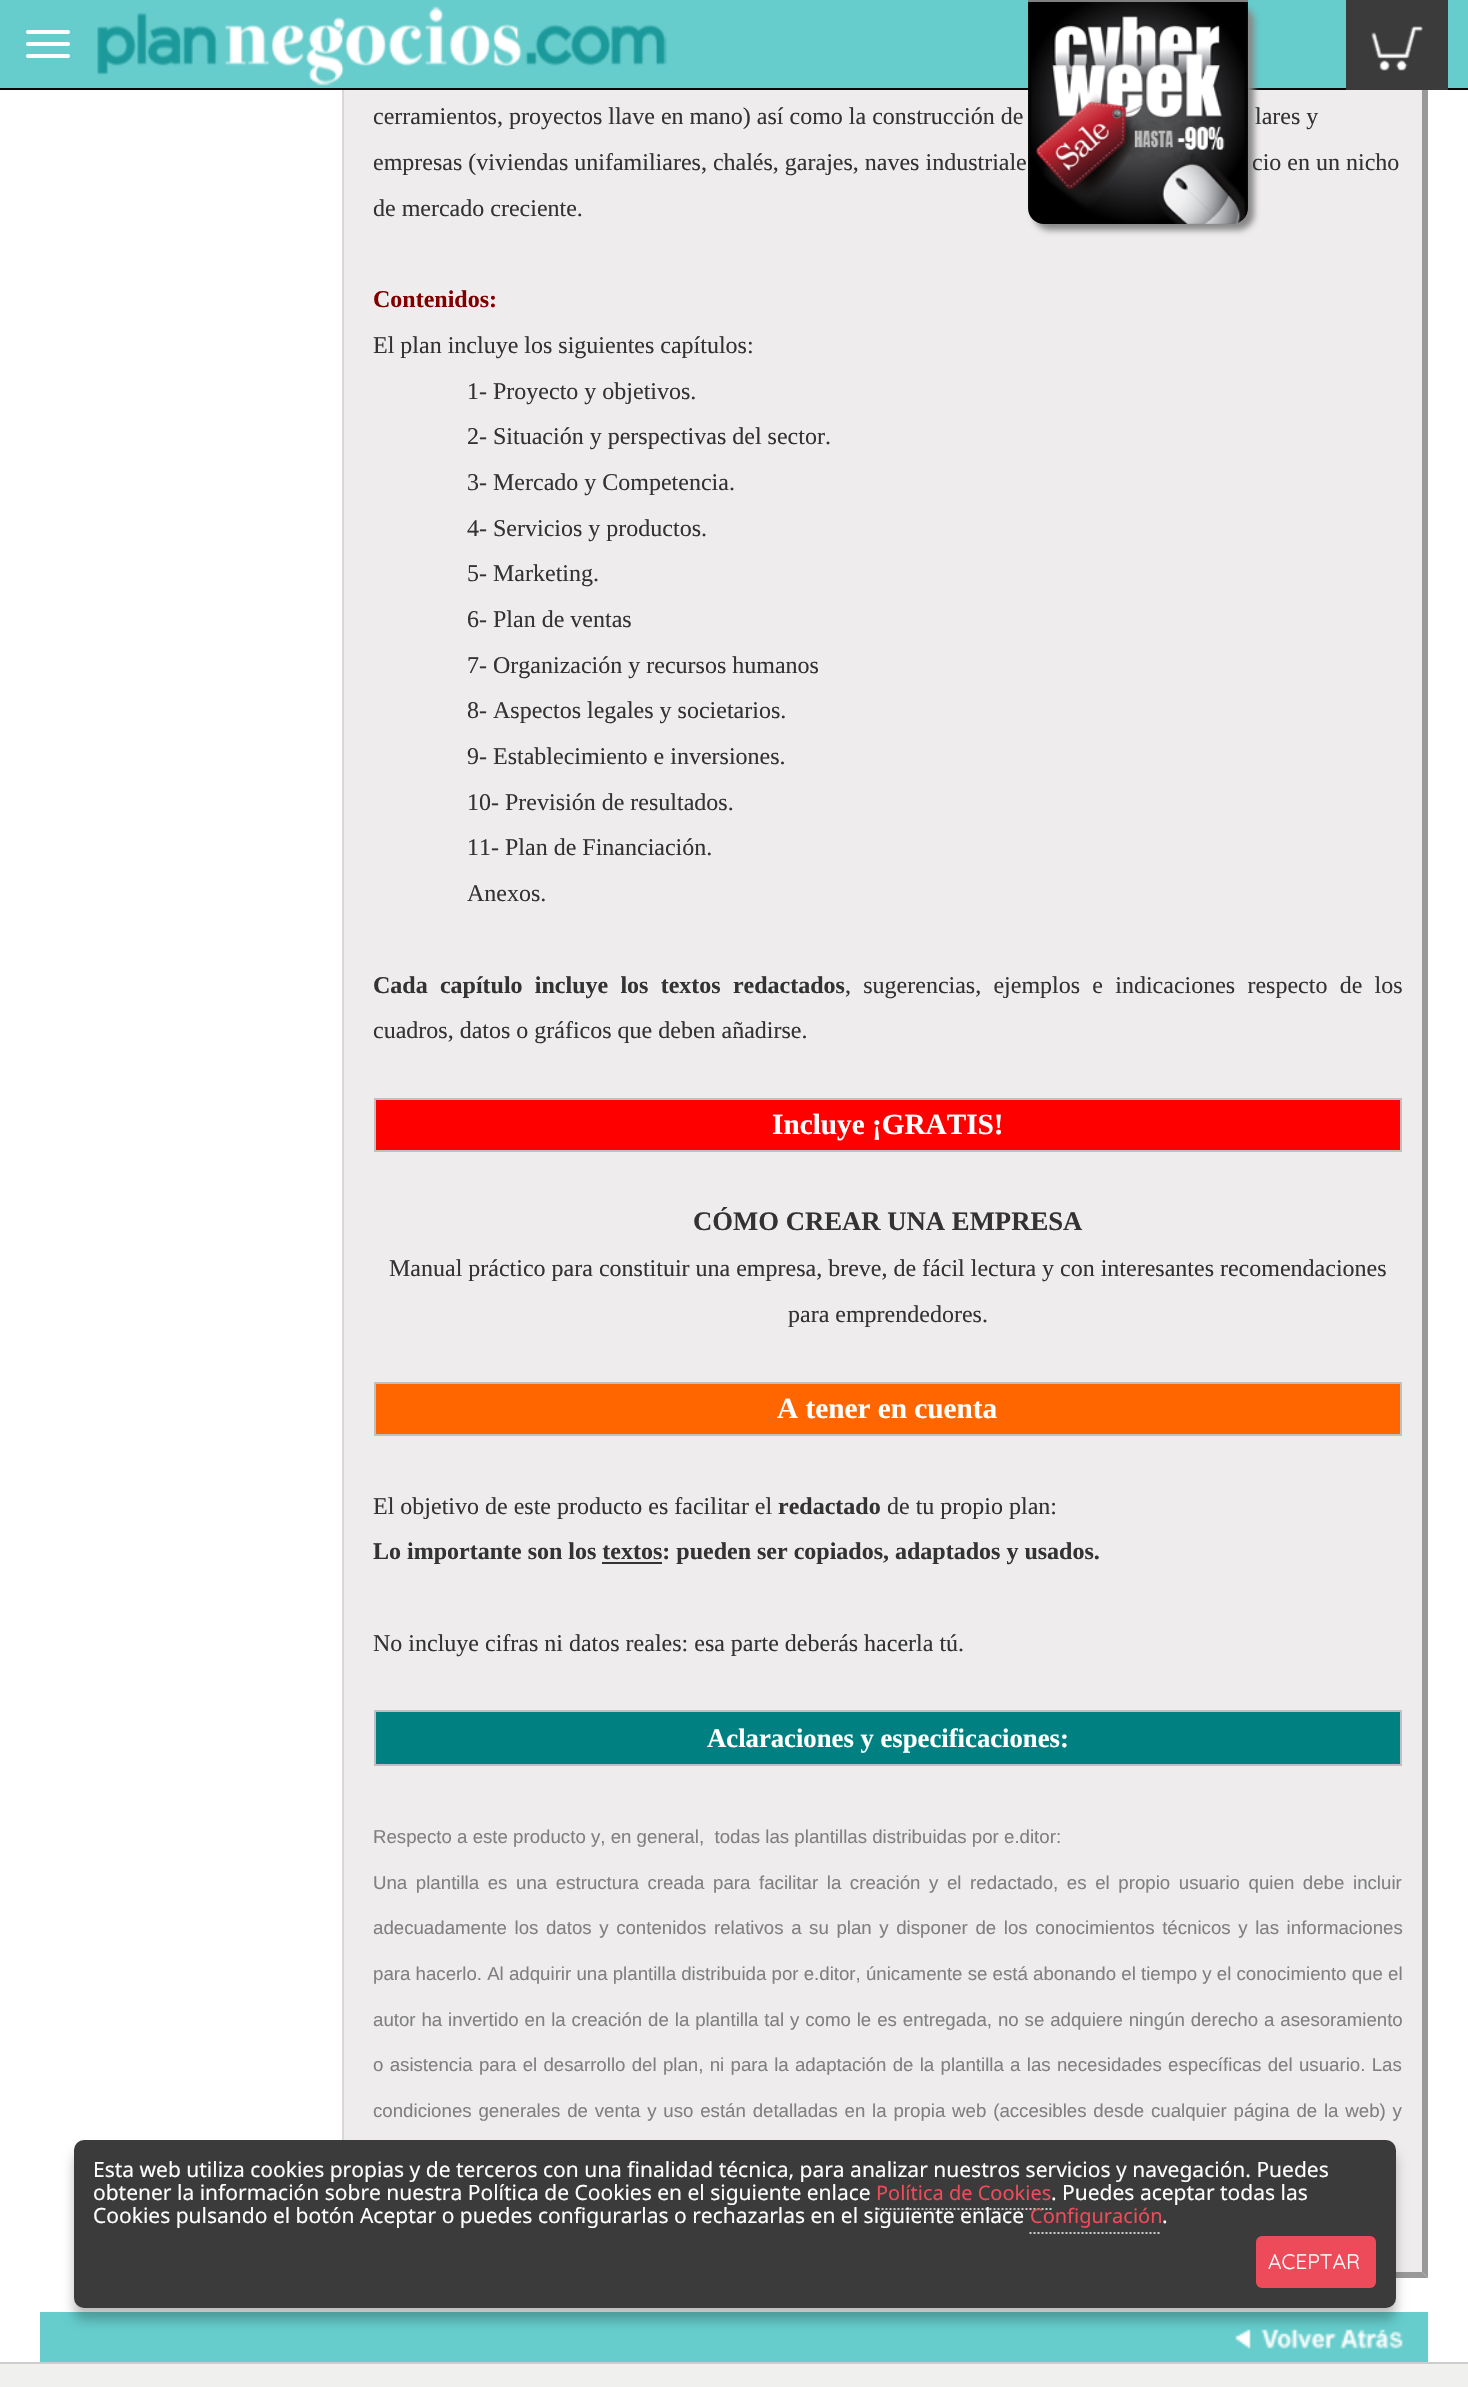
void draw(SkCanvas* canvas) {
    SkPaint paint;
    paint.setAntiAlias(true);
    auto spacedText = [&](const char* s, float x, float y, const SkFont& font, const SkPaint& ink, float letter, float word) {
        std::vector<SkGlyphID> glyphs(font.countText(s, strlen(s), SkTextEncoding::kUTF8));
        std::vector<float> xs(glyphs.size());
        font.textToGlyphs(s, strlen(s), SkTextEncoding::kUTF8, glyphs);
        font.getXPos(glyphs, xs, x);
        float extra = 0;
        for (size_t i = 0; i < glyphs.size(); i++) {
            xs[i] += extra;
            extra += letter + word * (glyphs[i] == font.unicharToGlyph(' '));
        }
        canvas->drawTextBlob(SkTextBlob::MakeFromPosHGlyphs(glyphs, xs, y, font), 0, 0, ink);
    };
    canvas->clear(0xFFFFFFFF);
    paint.setColor(0xFF999999);
    canvas->drawPath(SkPathBuilder().moveTo(1428, -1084).lineTo(1428, 2278).lineTo(1422, 2272).lineTo(1422, -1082).close().detach(), paint);
    canvas->drawPath(SkPathBuilder().moveTo(1428, 2278).lineTo(342, 2278).lineTo(344, 2272).lineTo(1422, 2272).close().detach(), paint);
    paint.setColor(0xFFD9D7D7);
    canvas->drawPath(SkPathBuilder().moveTo(342, 2278).lineTo(342, -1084).lineTo(344, -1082).lineTo(344, 2272).close().detach(), paint);
    paint.setColor(0xFF66CCCC);
    canvas->drawRect(SkRect::MakeXYWH(0, 0, 1468, 88), paint);
    paint.setColor(0xFF080808);
    canvas->drawRect(SkRect::MakeXYWH(0, 88, 1468, 2), paint);
    paint.setColor(0xFFFFFFFF);
    canvas->drawRoundRect(SkRect::MakeXYWH(26, 30, 44, 4), 2, 2, paint);
    canvas->drawRoundRect(SkRect::MakeXYWH(26, 42, 44, 4), 2, 2, paint);
    canvas->drawRoundRect(SkRect::MakeXYWH(26, 54, 44, 4), 2, 2, paint);
    canvas->drawImageRect(SkImages::DeferredFromEncodedData(SkData::MakeFromFileName("img1.png")), SkRect::MakeXYWH(97, 6, 570, 80), SkSamplingOptions());
    paint.setColor(0xFFEEECEC);
    canvas->drawRect(SkRect::MakeXYWH(344, 90, 1078, 2182), paint);
    paint.setColor(0xFF888888);
    paint.setMaskFilter(SkMaskFilter::MakeBlur(kNormal_SkBlurStyle, 3));
    canvas->drawRoundRect(SkRect::MakeXYWH(1034, 6, 220, 224), 16, 16, paint);
    paint.setMaskFilter(nullptr);
    paint.setColor(0xFF808080);
    canvas->drawRect(SkRect::MakeXYWH(1028, 0, 220, 2), paint);
    canvas->drawImageRect(SkImages::DeferredFromEncodedData(SkData::MakeFromFileName("img2.png")), SkRect::MakeXYWH(1028, 2, 220, 222), SkSamplingOptions());
    paint.setColor(0xFF3B3B3B);
    canvas->drawRect(SkRect::MakeXYWH(1346, 0, 102, 90), paint);
    canvas->drawImageRect(SkImages::DeferredFromEncodedData(SkData::MakeFromFileName("img3.png")), SkRect::MakeXYWH(1371, 26, 52, 45), SkSamplingOptions());
    SkFont font1(fontMgr->matchFamilyStyle("Liberation Serif", SkFontStyle::Normal()), 24);
    font1.setSubpixel(true);
    paint.setColor(0xFF333333);
    canvas->drawString("cerramientos, proyectos llave en mano) así como la construcción de", 373, 124, font1, paint);
    canvas->drawString("lares y", 1255, 124, font1, paint);
    canvas->drawString("empresas (viviendas unifamiliares, chalés, garajes, naves industriale", 373, 170, font1, paint);
    canvas->drawString("cio en un nicho", 1252, 170, font1, paint);
    canvas->drawString("de mercado creciente.", 373, 216, font1, paint);
    SkFont font2(fontMgr->matchFamilyStyle("Liberation Serif", SkFontStyle::Bold()), 24);
    font2.setSubpixel(true);
    paint.setColor(0xFF800000);
    canvas->drawString("Contenidos:", 373, 307, font2, paint);
    paint.setColor(0xFF333333);
    canvas->drawString("El plan incluye los siguientes capítulos:", 373, 353, font1, paint);
    canvas->drawString("1- Proyecto y objetivos.", 467, 399, font1, paint);
    canvas->drawString("2- Situación y perspectivas del sector.", 467, 444, font1, paint);
    canvas->drawString("3- Mercado y Competencia.", 467, 490, font1, paint);
    canvas->drawString("4- Servicios y productos.", 467, 536, font1, paint);
    canvas->drawString("5- Marketing.", 467, 581, font1, paint);
    canvas->drawString("6- Plan de ventas", 467, 627, font1, paint);
    canvas->drawString("7- Organización y recursos humanos", 467, 673, font1, paint);
    canvas->drawString("8- Aspectos legales y societarios.", 467, 718, font1, paint);
    canvas->drawString("9- Establecimiento e inversiones.", 467, 764, font1, paint);
    canvas->drawString("10- Previsión de resultados.", 467, 810, font1, paint);
    canvas->drawString("11- Plan de Financiación.", 467, 855, font1, paint);
    canvas->drawString("Anexos.", 467, 901, font1, paint);
    spacedText("Cada capítulo incluye los textos redactados", 373, 993, font2, paint, 0, 6.25f);
    spacedText(", sugerencias, ejemplos e indicaciones respecto de los", 845, 993, font1, paint, 0, 6.25f);
    canvas->drawString("cuadros, datos o gráficos que deben añadirse.", 373, 1038, font1, paint);
    paint.setColor(0xFFFF0000);
    canvas->drawRect(SkRect::MakeXYWH(375, 1099, 1026, 52), paint);
    paint.setStyle(SkPaint::kStroke_Style);
    paint.setStrokeWidth(2);
    paint.setColor(0xFFC0C0C0);
    canvas->drawRect(SkRect::MakeXYWH(375, 1099, 1026, 52), paint);
    SkFont font3(fontMgr->matchFamilyStyle("Liberation Serif", SkFontStyle::Bold()), 29.25f);
    font3.setSubpixel(true);
    paint.setStyle(SkPaint::kFill_Style);
    paint.setColor(0xFFFFFFFF);
    canvas->drawString("Incluye ¡GRATIS!", 772, 1134, font3, paint);
    SkFont font4(fontMgr->matchFamilyStyle("Liberation Serif", SkFontStyle::Bold()), 26.7f);
    font4.setSubpixel(true);
    paint.setColor(0xFF333333);
    canvas->drawString("CÓMO CREAR UNA EMPRESA", 693, 1230, font4, paint);
    canvas->drawString("Manual práctico para constituir una empresa, breve, de fácil lectura y con interesantes recomendaciones", 389, 1276, font1, paint);
    canvas->drawString("para emprendedores.", 788, 1322, font1, paint);
    paint.setColor(0xFFFF6600);
    canvas->drawRect(SkRect::MakeXYWH(375, 1383, 1026, 52), paint);
    paint.setStyle(SkPaint::kStroke_Style);
    paint.setColor(0xFFC0C0C0);
    canvas->drawRect(SkRect::MakeXYWH(375, 1383, 1026, 52), paint);
    paint.setStyle(SkPaint::kFill_Style);
    paint.setColor(0xFFFFFFFF);
    canvas->drawString("A tener en cuenta", 777, 1418, font3, paint);
    paint.setColor(0xFF333333);
    canvas->drawString("El objetivo de este producto es facilitar el", 373, 1514, font1, paint);
    canvas->drawString("redactado", 778, 1514, font2, paint);
    canvas->drawString("de tu propio plan:", 887, 1514, font1, paint);
    canvas->drawString("Lo importante son los textos: pueden ser copiados, adaptados y usados.", 373, 1559, font2, paint);
    canvas->drawRect(SkRect::MakeXYWH(602, 1562, 60, 2), paint);
    canvas->drawString("No incluye cifras ni datos reales: esa parte deberás hacerla tú.", 373, 1651, font1, paint);
    paint.setColor(0xFF008080);
    canvas->drawRect(SkRect::MakeXYWH(375, 1711, 1026, 54), paint);
    paint.setStyle(SkPaint::kStroke_Style);
    paint.setColor(0xFFC0C0C0);
    canvas->drawRect(SkRect::MakeXYWH(375, 1711, 1026, 54), paint);
    paint.setStyle(SkPaint::kFill_Style);
    paint.setColor(0xFFFFFFFF);
    canvas->drawString("Aclaraciones y especificaciones:", 707, 1747, font4, paint);
    SkFont font5(fontMgr->matchFamilyStyle("Liberation Sans", SkFontStyle::Normal()), 18.67f);
    font5.setSubpixel(true);
    paint.setColor(0xFF808080);
    canvas->drawString("Respecto a este producto y, en general,  todas las plantillas distribuidas por e.ditor:", 373, 1843, font5, paint);
    spacedText("Una plantilla es una estructura creada para facilitar la creación y el redactado, es el propio usuario quien debe incluir", 373, 1889, font5, paint, 0, 3.4f);
    spacedText("adecuadamente los datos y contenidos relativos a su plan y disponer de los conocimientos técnicos y las informaciones", 373, 1934, font5, paint, 0, 2.4f);
    canvas->drawString("para hacerlo. Al adquirir una plantilla distribuida por e.ditor, únicamente se está abonando el tiempo y el conocimiento que el", 373, 1980, font5, paint);
    spacedText("autor ha invertido en la creación de la plantilla tal y como le es entregada, no se adquiere ningún derecho a asesoramiento", 373, 2026, font5, paint, 0, 0.7f);
    spacedText("o asistencia para el desarrollo del plan, ni para la adaptación de la plantilla a las necesidades específicas del usuario. Las", 373, 2071, font5, paint, 0, 1.1f);
    spacedText("condiciones generales de venta y uso están detalladas en la propia web (accesibles desde cualquier página de la web) y", 373, 2117, font5, paint, 0, 1.6f);
    paint.setColor(0xFF66CCCC);
    canvas->drawRect(SkRect::MakeXYWH(40, 2312, 1388, 50), paint);
    canvas->drawImageRect(SkImages::DeferredFromEncodedData(SkData::MakeFromFileName("img4.png")), SkRect::MakeXYWH(1235, 2329, 168, 20), SkSamplingOptions());
    paint.setColor(0x40000000);
    paint.setMaskFilter(SkMaskFilter::MakeBlur(kNormal_SkBlurStyle, 6));
    canvas->drawRoundRect(SkRect::MakeXYWH(74, 2152, 1322, 168), 10, 10, paint);
    paint.setMaskFilter(nullptr);
    paint.setColor(0xFF3B3B3B);
    canvas->drawRoundRect(SkRect::MakeXYWH(74, 2140, 1322, 168), 10, 10, paint);
    SkFont font6(fontMgr->matchFamilyStyle("Noto Sans", SkFontStyle::Normal()), 21);
    font6.setSubpixel(true);
    paint.setColor(0xFFFFFFFF);
    canvas->drawString("Esta web utiliza cookies propias y de terceros con una finalidad técnica, para analizar nuestros servicios y navegación. Puedes", 93, 2177, font6, paint);
    canvas->drawString("obtener la información sobre nuestra Política de Cookies en el siguiente enlace", 93, 2200, font6, paint);
    SkFont font7(fontMgr->matchFamilyStyle("Noto Sans", SkFontStyle::Normal()), 20);
    font7.setSubpixel(true);
    paint.setColor(0xFFEE4B5A);
    canvas->drawString("Política de Cookies", 876, 2200, font7, paint);
    paint.setStyle(SkPaint::kStroke_Style);
    paint.setColor(0xFFCECECE);
    paint.setPathEffect(SkDashPathEffect::Make({{2, 2}}, 0));
    canvas->drawPath(SkPathBuilder().moveTo(877.5f, 2209).lineTo(1051.5f, 2209).detach(), paint);
    paint.setPathEffect(nullptr);
    paint.setStyle(SkPaint::kFill_Style);
    paint.setColor(0xFFFFFFFF);
    canvas->drawString(". Puedes aceptar todas las", 1051, 2200, font6, paint);
    canvas->drawString("Cookies pulsando el botón Aceptar o puedes configurarlas o rechazarlas en el siguiente enlace", 93, 2223, font6, paint);
    paint.setColor(0xFFEE4B5A);
    canvas->drawString("Configuración", 1030, 2223, font7, paint);
    paint.setStyle(SkPaint::kStroke_Style);
    paint.setColor(0xFFCECECE);
    paint.setPathEffect(SkDashPathEffect::Make({{2, 2}}, 0));
    canvas->drawPath(SkPathBuilder().moveTo(1029.5f, 2233).lineTo(1161.5f, 2233).detach(), paint);
    paint.setPathEffect(nullptr);
    paint.setStyle(SkPaint::kFill_Style);
    paint.setColor(0xFFFFFFFF);
    canvas->drawString(".", 1162, 2223, font6, paint);
    paint.setColor(0xFFEE4B5A);
    canvas->drawRoundRect(SkRect::MakeXYWH(1256, 2236, 120, 52), 6, 6, paint);
    SkFont font8(fontMgr->matchFamilyStyle("Quicksand", SkFontStyle::Normal()), 21);
    font8.setSubpixel(true);
    paint.setColor(0xFFFFFFFF);
    canvas->drawString("ACEPTAR", 1268, 2269, font8, paint);
    paint.setColor(0xFFF0F0EE);
    canvas->drawRect(SkRect::MakeXYWH(0, 2364, 1468, 23), paint);
    paint.setColor(0xFFCDCDCD);
    canvas->drawRect(SkRect::MakeXYWH(0, 2362, 1468, 2), paint);
}
